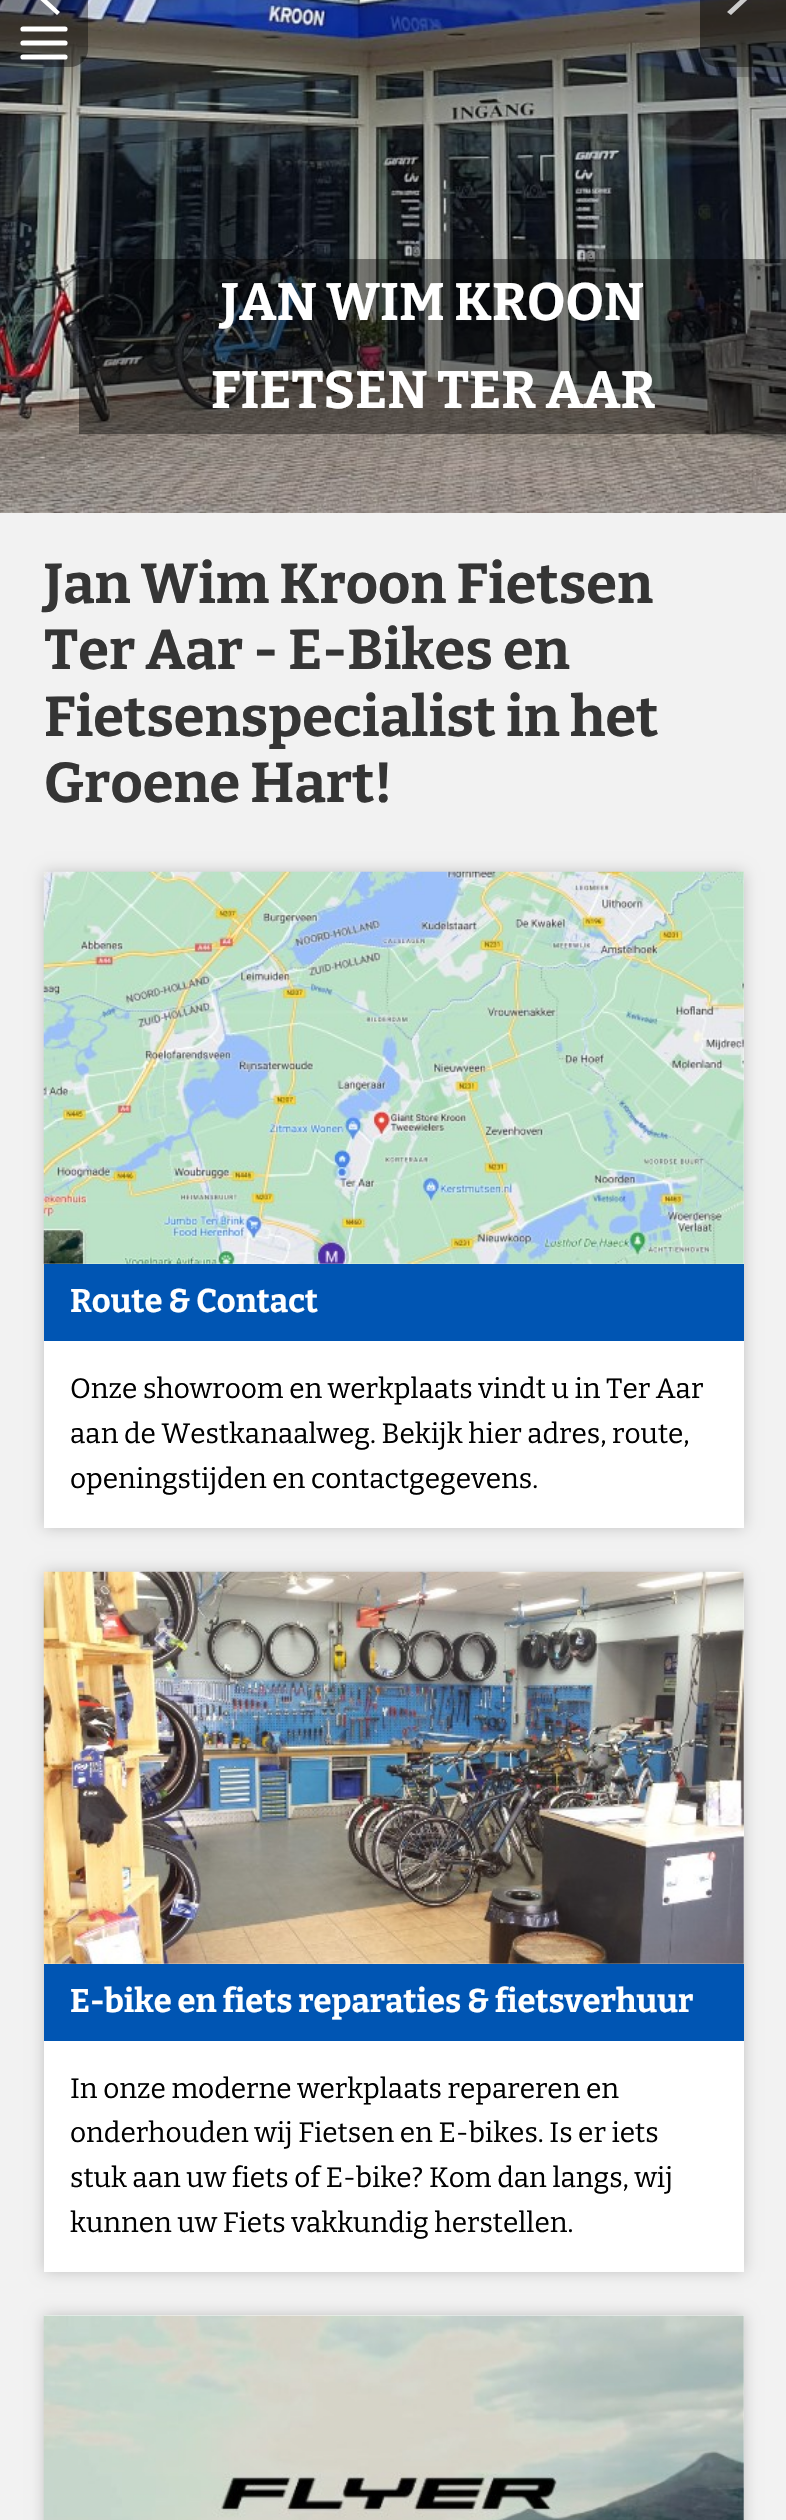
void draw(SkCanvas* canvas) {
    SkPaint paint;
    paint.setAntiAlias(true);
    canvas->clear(0xFFF2F2F2);
    canvas->drawImageRect(SkImages::DeferredFromEncodedData(SkData::MakeFromFileName("img1.png")), SkRect::MakeXYWH(0, 0, 786, 513), SkSamplingOptions());
    paint.setColor(0x66000000);
    canvas->drawPath(SkPathBuilder().moveTo(0, -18).lineTo(70, -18).cubicTo(80, -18, 88, -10, 88, 0).lineTo(88, 49).cubicTo(88, 59, 80, 67, 70, 67).lineTo(0, 67).close().detach(), paint);
    paint.setStyle(SkPaint::kStroke_Style);
    paint.setStrokeWidth(5.2f);
    paint.setStrokeCap(SkPaint::kRound_Cap);
    paint.setColor(0xFFFFFFFF);
    canvas->drawPath(SkPathBuilder().moveTo(23, 29).lineTo(65, 29).moveTo(23, 43).lineTo(65, 43).moveTo(23, 43).lineTo(65, 43).moveTo(23, 57).lineTo(65, 57).detach(), paint);
    paint.setStyle(SkPaint::kFill_Style);
    paint.setColor(0x66000000);
    canvas->drawPath(SkPathBuilder().moveTo(718, -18).lineTo(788, -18).lineTo(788, 67).lineTo(718, 67).cubicTo(708, 67, 700, 59, 700, 49).lineTo(700, 0).cubicTo(700, -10, 708, -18, 718, -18).close().detach(), paint);
    paint.setColor(0xFFFFFFFF);
    canvas->drawPath(SkPathBuilder().moveTo(727, 12).lineTo(731, 15).lineTo(760, -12).lineTo(731, -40).lineTo(727, -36).lineTo(753, -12).close().detach(), paint);
    paint.setColor(0x33000000);
    canvas->drawRect(SkRect::MakeXYWH(700, 0, 86, 77), paint);
    paint.setColor(0xFFFFFFFF);
    canvas->drawPath(SkPathBuilder().moveTo(60, -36).lineTo(57, -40).lineTo(27, -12).lineTo(57, 15).lineTo(60, 12).lineTo(34, -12).close().detach(), paint);
    paint.setColor(0x66000000);
    canvas->drawRect(SkRect::MakeXYWH(79, 259, 707, 175), paint);
    SkFont font1(fontMgr->matchFamilyStyle("Bitter", SkFontStyle::Bold()), 52.5f);
    font1.setSubpixel(true);
    paint.setColor(0xFFFFFFFF);
    canvas->drawString("JAN WIM KROON", 221, 320, font1, paint);
    canvas->drawString("FIETSEN TER AAR", 211, 408, font1, paint);
    SkFont font2(fontMgr->matchFamilyStyle("Bitter", SkFontStyle::Bold()), 56);
    font2.setSubpixel(true);
    paint.setColor(0xFF353535);
    canvas->drawString("Jan Wim Kroon Fietsen", 44, 603, font2, paint);
    canvas->drawString("Ter Aar - E-Bikes en", 44, 669, font2, paint);
    canvas->drawString("Fietsenspecialist in het", 44, 736, font2, paint);
    canvas->drawString("Groene Hart!", 44, 802, font2, paint);
    paint.setColor(0x33000000);
    paint.setMaskFilter(SkMaskFilter::MakeBlur(kNormal_SkBlurStyle, 7));
    canvas->drawRect(SkRect::MakeXYWH(44, 872, 700, 656), paint);
    paint.setMaskFilter(nullptr);
    paint.setColor(0xFFFFFFFF);
    canvas->drawRect(SkRect::MakeXYWH(44, 872, 700, 656), paint);
    canvas->drawImageRect(SkImages::DeferredFromEncodedData(SkData::MakeFromFileName("img2.png")), SkRect::MakeXYWH(43, 871, 701, 393), SkSamplingOptions());
    paint.setColor(0xFF0055B3);
    canvas->drawRect(SkRect::MakeXYWH(44, 1264, 700, 77), paint);
    SkFont font3(fontMgr->matchFamilyStyle("Bitter", SkFontStyle::Bold()), 32.75f);
    font3.setSubpixel(true);
    paint.setColor(0xFFFFFFFF);
    canvas->drawString("Route & Contact", 70, 1312, font3, paint);
    SkFont font4(fontMgr->matchFamilyStyle("Bitter", SkFontStyle::Normal()), 28);
    font4.setSubpixel(true);
    paint.setColor(0xFF000000);
    canvas->drawString("Onze showroom en werkplaats vindt u in Ter Aar", 70, 1398, font4, paint);
    canvas->drawString("aan de Westkanaalweg. Bekijk hier adres, route,", 70, 1443, font4, paint);
    canvas->drawString("openingstijden en contactgegevens.", 70, 1488, font4, paint);
    paint.setColor(0x33000000);
    paint.setMaskFilter(SkMaskFilter::MakeBlur(kNormal_SkBlurStyle, 7));
    canvas->drawRect(SkRect::MakeXYWH(44, 1572, 700, 700), paint);
    paint.setMaskFilter(nullptr);
    paint.setColor(0xFFFFFFFF);
    canvas->drawRect(SkRect::MakeXYWH(44, 1572, 700, 700), paint);
    canvas->drawImageRect(SkImages::DeferredFromEncodedData(SkData::MakeFromFileName("img3.png")), SkRect::MakeXYWH(43, 1571, 701, 393), SkSamplingOptions());
    paint.setColor(0xFF0055B3);
    canvas->drawRect(SkRect::MakeXYWH(44, 1964, 700, 77), paint);
    paint.setColor(0xFFFFFFFF);
    canvas->drawString("E-bike en fiets reparaties & fietsverhuur", 70, 2012, font3, paint);
    paint.setColor(0xFF000000);
    canvas->drawString("In onze moderne werkplaats repareren en", 70, 2098, font4, paint);
    canvas->drawString("onderhouden wij Fietsen en E-bikes. Is er iets", 70, 2142, font4, paint);
    canvas->drawString("stuk aan uw fiets of E-bike? Kom dan langs, wij", 70, 2187, font4, paint);
    canvas->drawString("kunnen uw Fiets vakkundig herstellen.", 70, 2232, font4, paint);
    paint.setColor(0x33000000);
    paint.setMaskFilter(SkMaskFilter::MakeBlur(kNormal_SkBlurStyle, 7));
    canvas->drawRect(SkRect::MakeXYWH(44, 2315, 700, 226), paint);
    paint.setMaskFilter(nullptr);
    paint.setColor(0xFFFFFFFF);
    canvas->drawRect(SkRect::MakeXYWH(44, 2315, 700, 205), paint);
    canvas->drawImageRect(SkImages::DeferredFromEncodedData(SkData::MakeFromFileName("img4.png")), SkRect::MakeXYWH(43, 2315, 701, 205), SkSamplingOptions());
}
